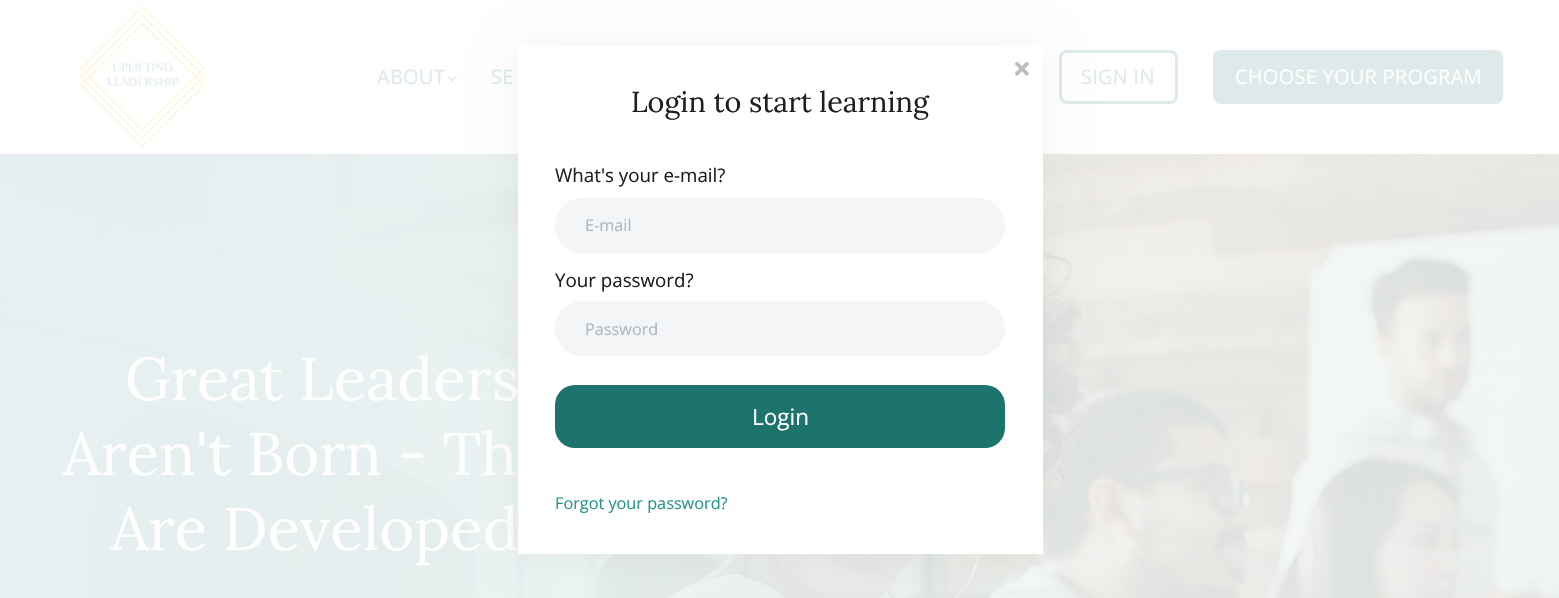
void draw(SkCanvas* canvas) {
    SkPaint paint;
    paint.setAntiAlias(true);
    auto spacedText = [&](const char* s, float x, float y, const SkFont& font, const SkPaint& ink, float letter, float word) {
        std::vector<SkGlyphID> glyphs(font.countText(s, strlen(s), SkTextEncoding::kUTF8));
        std::vector<float> xs(glyphs.size());
        font.textToGlyphs(s, strlen(s), SkTextEncoding::kUTF8, glyphs);
        font.getXPos(glyphs, xs, x);
        float extra = 0;
        for (size_t i = 0; i < glyphs.size(); i++) {
            xs[i] += extra;
            extra += letter + word * (glyphs[i] == font.unicharToGlyph(' '));
        }
        canvas->drawTextBlob(SkTextBlob::MakeFromPosHGlyphs(glyphs, xs, y, font), 0, 0, ink);
    };
    canvas->clear(0xFFFFFFFF);
    canvas->drawImageRect(SkImages::DeferredFromEncodedData(SkData::MakeFromFileName("img1.png")), SkRect::MakeXYWH(80, 6, 125, 142), SkSamplingOptions());
    SkFont font1(fontMgr->matchFamilyStyle("Open Sans", SkFontStyle::Normal()), 20);
    font1.setSubpixel(true);
    paint.setColor(0xFFDDEAE9);
    spacedText("ABOUT", 377, 84, font1, paint, 0.25f, 0);
    canvas->drawPath(SkPathBuilder().moveTo(457, 77).lineTo(452.5f, 81.5f).lineTo(452, 80.5f).lineTo(456, 76).close().detach(), paint);
    canvas->drawPath(SkPathBuilder().moveTo(453.5f, 80.5f).lineTo(452.5f, 81.5f).lineTo(448, 77).lineTo(449, 76).close().detach(), paint);
    spacedText("SE", 491, 84, font1, paint, 0.25f, 0);
    paint.setStyle(SkPaint::kStroke_Style);
    paint.setStrokeWidth(3);
    canvas->drawRoundRect(SkRect::MakeXYWH(1060.5f, 51.5f, 116, 51), 6.5f, 6.5f, paint);
    paint.setStyle(SkPaint::kFill_Style);
    spacedText("SIGN IN", 1081, 84, font1, paint, 0.25f, 0);
    canvas->drawRoundRect(SkRect::MakeXYWH(1213, 50, 290, 54), 8, 8, paint);
    paint.setColor(0xFFFFFFFF);
    spacedText("CHOOSE YOUR PROGRAM", 1235, 84, font1, paint, 0.25f, 0);
    canvas->drawImageRect(SkImages::DeferredFromEncodedData(SkData::MakeFromFileName("img2.png")), SkRect::MakeXYWH(0, 154, 1559, 444), SkSamplingOptions());
    SkFont font2(fontMgr->matchFamilyStyle("Lora", SkFontStyle::Normal()), 60);
    font2.setSubpixel(true);
    canvas->drawString("Great Leaders", 125, 400, font2, paint);
    canvas->drawString("Aren't Born - Th", 63, 475, font2, paint);
    canvas->drawString("Are Developed", 111, 550, font2, paint);
    paint.setColor(0x0D000000);
    paint.setMaskFilter(SkMaskFilter::MakeBlur(kNormal_SkBlurStyle, 19));
    canvas->drawRect(SkRect::MakeXYWH(518, 45, 525, 509), paint);
    paint.setMaskFilter(nullptr);
    paint.setColor(0xFFFFFFFF);
    canvas->drawRect(SkRect::MakeXYWH(518, 45, 525, 509), paint);
    canvas->drawImageRect(SkImages::DeferredFromEncodedData(SkData::MakeFromFileName("img3.png")), SkRect::MakeXYWH(1015, 62, 14, 14), SkSamplingOptions());
    SkFont font3(fontMgr->matchFamilyStyle("Lora", SkFontStyle::Normal()), 28.75f);
    font3.setSubpixel(true);
    paint.setColor(0xFF1E1E1E);
    canvas->drawString("Login to start learning", 631, 112, font3, paint);
    SkFont font4(fontMgr->matchFamilyStyle("Open Sans", SkFontStyle::Normal()), 18.75f);
    font4.setSubpixel(true);
    canvas->drawString("What's your e-mail?", 555, 182, font4, paint);
    paint.setColor(0xFFF3F5F7);
    canvas->drawRoundRect(SkRect::MakeXYWH(556.5f, 199.5f, 447, 52), 26, 26, paint);
    paint.setStyle(SkPaint::kStroke_Style);
    canvas->drawRoundRect(SkRect::MakeXYWH(556.5f, 199.5f, 447, 52), 26, 26, paint);
    SkFont font5(fontMgr->matchFamilyStyle("Open Sans", SkFontStyle::Normal()), 16.25f);
    font5.setSubpixel(true);
    paint.setStyle(SkPaint::kFill_Style);
    paint.setColor(0xFFACB7C0);
    canvas->drawString("E-mail", 585, 231, font5, paint);
    paint.setColor(0xFF1E1E1E);
    canvas->drawString("Your password?", 555, 287, font4, paint);
    paint.setColor(0xFFF3F5F7);
    canvas->drawRoundRect(SkRect::MakeXYWH(556.5f, 302.5f, 447, 52), 26, 26, paint);
    paint.setStyle(SkPaint::kStroke_Style);
    canvas->drawRoundRect(SkRect::MakeXYWH(556.5f, 302.5f, 447, 52), 26, 26, paint);
    paint.setStyle(SkPaint::kFill_Style);
    paint.setColor(0xFFACB7C0);
    canvas->drawString("Password", 585, 335, font5, paint);
    paint.setColor(0xFF1C746C);
    canvas->drawRoundRect(SkRect::MakeXYWH(555, 385, 450, 63), 20, 20, paint);
    SkFont font6(fontMgr->matchFamilyStyle("Open Sans", SkFontStyle::Normal()), 22.5f);
    font6.setSubpixel(true);
    paint.setColor(0xFFFFFFFF);
    canvas->drawString("Login", 752, 425, font6, paint);
    paint.setColor(0xFF25948A);
    canvas->drawString("Forgot your password?", 555, 509, font5, paint);
}
